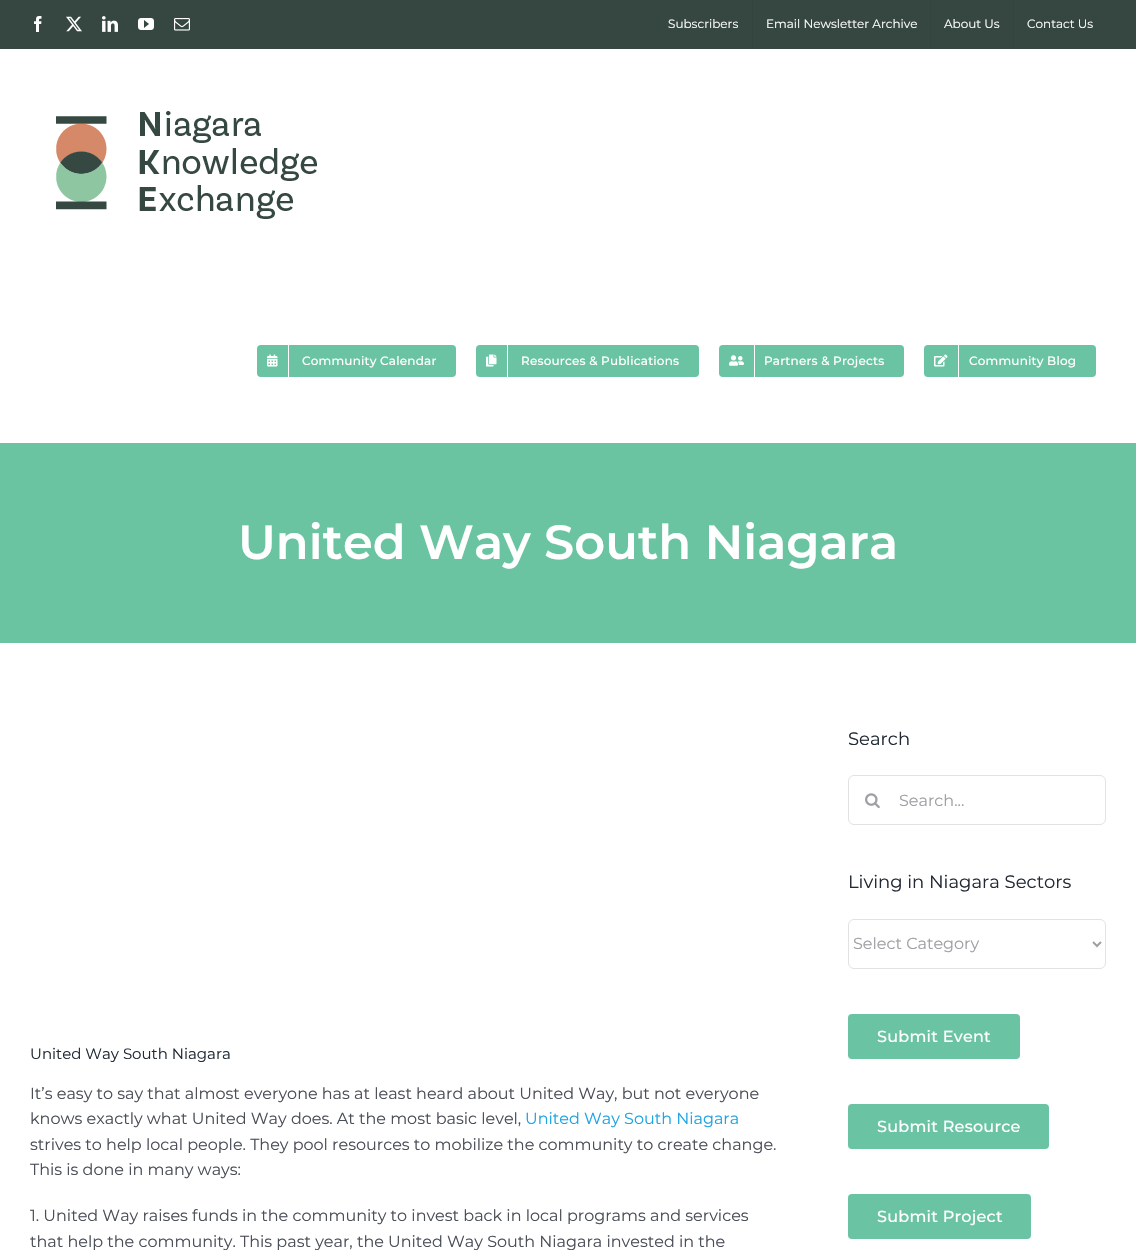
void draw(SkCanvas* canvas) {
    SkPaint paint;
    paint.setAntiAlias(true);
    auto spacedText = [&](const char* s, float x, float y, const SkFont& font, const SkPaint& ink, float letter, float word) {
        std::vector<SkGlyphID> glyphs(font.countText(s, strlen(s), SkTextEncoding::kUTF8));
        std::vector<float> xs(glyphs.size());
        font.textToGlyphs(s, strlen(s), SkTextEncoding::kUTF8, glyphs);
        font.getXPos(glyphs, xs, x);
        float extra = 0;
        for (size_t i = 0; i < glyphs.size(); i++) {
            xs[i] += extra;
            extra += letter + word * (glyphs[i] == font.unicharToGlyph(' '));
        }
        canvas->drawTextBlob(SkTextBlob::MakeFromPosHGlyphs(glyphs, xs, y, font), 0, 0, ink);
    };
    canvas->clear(0xFFFFFFFF);
    paint.setColor(0xFF364742);
    canvas->drawRect(SkRect::MakeXYWH(0, 0, 1136, 49), paint);
    canvas->drawImageRect(SkImages::DeferredFromEncodedData(SkData::MakeFromFileName("img1.png")), SkRect::MakeXYWH(34, 16, 8, 16), SkSamplingOptions());
    canvas->drawImageRect(SkImages::DeferredFromEncodedData(SkData::MakeFromFileName("img2.png")), SkRect::MakeXYWH(66, 16, 16, 16), SkSamplingOptions());
    canvas->drawImageRect(SkImages::DeferredFromEncodedData(SkData::MakeFromFileName("img3.png")), SkRect::MakeXYWH(102, 16, 16, 16), SkSamplingOptions());
    canvas->drawImageRect(SkImages::DeferredFromEncodedData(SkData::MakeFromFileName("img4.png")), SkRect::MakeXYWH(138, 18, 16, 12), SkSamplingOptions());
    canvas->drawImageRect(SkImages::DeferredFromEncodedData(SkData::MakeFromFileName("img5.png")), SkRect::MakeXYWH(174, 18, 16, 13), SkSamplingOptions());
    SkFont font1(fontMgr->matchFamilyStyle("Montserrat", SkFontStyle::Normal()), 12);
    font1.setSubpixel(true);
    paint.setColor(0xFFFFFFFF);
    canvas->drawString("Subscribers", 668, 28, font1, paint);
    paint.setColor(0xFF33433E);
    canvas->drawRect(SkRect::MakeXYWH(752, 0, 1, 48), paint);
    paint.setColor(0xFFFFFFFF);
    canvas->drawString("Email Newsletter Archive", 766, 28, font1, paint);
    paint.setColor(0xFF33433E);
    canvas->drawRect(SkRect::MakeXYWH(930, 0, 1, 48), paint);
    paint.setColor(0xFFFFFFFF);
    canvas->drawString("About Us", 944, 28, font1, paint);
    paint.setColor(0xFF33433E);
    canvas->drawRect(SkRect::MakeXYWH(1013, 0, 1, 48), paint);
    paint.setColor(0xFFFFFFFF);
    canvas->drawString("Contact Us", 1027, 28, font1, paint);
    canvas->drawImageRect(SkImages::DeferredFromEncodedData(SkData::MakeFromFileName("img6.png")), SkRect::MakeXYWH(56, 111, 261, 108), SkSamplingOptions());
    paint.setColor(0xFF6AC4A3);
    canvas->drawRoundRect(SkRect::MakeXYWH(257, 345, 199, 32), 4, 4, paint);
    paint.setColor(0xFFFFFFFF);
    canvas->drawRect(SkRect::MakeXYWH(288, 345, 1, 32), paint);
    canvas->drawImageRect(SkImages::DeferredFromEncodedData(SkData::MakeFromFileName("img7.png")), SkRect::MakeXYWH(267, 354, 11, 13), SkSamplingOptions());
    SkFont font2(fontMgr->matchFamilyStyle("Montserrat", SkFontStyle(500, SkFontStyle::kNormal_Width, SkFontStyle::kUpright_Slant)), 12);
    font2.setSubpixel(true);
    spacedText("Community Calendar", 302, 365, font2, paint, 0.2f, 0);
    paint.setColor(0xFF6AC4A3);
    canvas->drawRoundRect(SkRect::MakeXYWH(476, 345, 223, 32), 4, 4, paint);
    paint.setColor(0xFFFFFFFF);
    canvas->drawRect(SkRect::MakeXYWH(507, 345, 1, 32), paint);
    canvas->drawImageRect(SkImages::DeferredFromEncodedData(SkData::MakeFromFileName("img8.png")), SkRect::MakeXYWH(486, 354, 11, 13), SkSamplingOptions());
    spacedText("Resources & Publications", 521, 365, font2, paint, 0.2f, 0);
    paint.setColor(0xFF6AC4A3);
    canvas->drawRoundRect(SkRect::MakeXYWH(719, 345, 185, 32), 4, 4, paint);
    paint.setColor(0xFFFFFFFF);
    canvas->drawRect(SkRect::MakeXYWH(754, 345, 1, 32), paint);
    canvas->drawImageRect(SkImages::DeferredFromEncodedData(SkData::MakeFromFileName("img9.png")), SkRect::MakeXYWH(729, 355, 15, 11), SkSamplingOptions());
    spacedText("Partners & Projects", 764, 365, font2, paint, 0.2f, 0);
    paint.setColor(0xFF6AC4A3);
    canvas->drawRoundRect(SkRect::MakeXYWH(924, 345, 172, 32), 4, 4, paint);
    paint.setColor(0xFFFFFFFF);
    canvas->drawRect(SkRect::MakeXYWH(958, 345, 1, 32), paint);
    canvas->drawImageRect(SkImages::DeferredFromEncodedData(SkData::MakeFromFileName("img10.png")), SkRect::MakeXYWH(934, 354, 14, 13), SkSamplingOptions());
    spacedText("Community Blog", 969, 365, font2, paint, 0.2f, 0);
    paint.setColor(0xFF6BC4A1);
    canvas->drawRect(SkRect::MakeXYWH(0, 443, 1136, 200), paint);
    SkFont font3(fontMgr->matchFamilyStyle("Montserrat", SkFontStyle(600, SkFontStyle::kNormal_Width, SkFontStyle::kUpright_Slant)), 48);
    font3.setSubpixel(true);
    paint.setColor(0xFFFFFFFF);
    canvas->drawString("United Way South Niagara", 238, 559, font3, paint);
    SkFont font4(fontMgr->matchFamilyStyle("Montserrat", SkFontStyle::Normal()), 15);
    font4.setSubpixel(true);
    paint.setColor(0xFF212934);
    canvas->drawString("United Way South Niagara", 30, 1059, font4, paint);
    SkFont font5(fontMgr->matchFamilyStyle("Montserrat", SkFontStyle::Normal()), 16);
    font5.setSubpixel(true);
    paint.setColor(0xFF4A4E57);
    canvas->drawString("It’s easy to say that almost everyone has at least heard about United Way, but not everyone", 30, 1099, font5, paint);
    canvas->drawString("knows exactly what United Way does. At the most basic level,", 30, 1124, font5, paint);
    paint.setColor(0xFF1AA4E3);
    canvas->drawString("United Way South Niagara", 525, 1124, font5, paint);
    paint.setColor(0xFF4A4E57);
    canvas->drawString("strives to help local people. They pool resources to mobilize the community to create change.", 30, 1150, font5, paint);
    canvas->drawString("This is done in many ways:", 30, 1175, font5, paint);
    canvas->drawString("1. United Way raises funds in the community to invest back in local programs and services", 30, 1221, font5, paint);
    canvas->drawString("that help the community. This past year, the United Way South Niagara invested in the", 30, 1247, font5, paint);
    SkFont font6(fontMgr->matchFamilyStyle("Montserrat", SkFontStyle::Normal()), 18);
    font6.setSubpixel(true);
    paint.setColor(0xFF212934);
    canvas->drawString("Search", 848, 745, font6, paint);
    paint.setStyle(SkPaint::kStroke_Style);
    paint.setStrokeWidth(1);
    paint.setColor(0xFFE2E2E2);
    canvas->drawRoundRect(SkRect::MakeXYWH(848.5f, 775.5f, 257, 49), 5.5f, 5.5f, paint);
    canvas->drawImageRect(SkImages::DeferredFromEncodedData(SkData::MakeFromFileName("img11.png")), SkRect::MakeXYWH(865, 793, 15, 16), SkSamplingOptions());
    paint.setStyle(SkPaint::kFill_Style);
    paint.setColor(0xFF9EA0A4);
    canvas->drawString("Search...", 899, 806, font5, paint);
    paint.setColor(0xFF212934);
    canvas->drawString("Living in Niagara Sectors", 848, 888, font6, paint);
    paint.setStyle(SkPaint::kStroke_Style);
    paint.setColor(0xFFE2E2E2);
    canvas->drawRoundRect(SkRect::MakeXYWH(848.5f, 919.5f, 257, 49), 5.5f, 5.5f, paint);
    paint.setStrokeWidth(2);
    paint.setColor(0xFF9EA0A4);
    canvas->drawPath(SkPathBuilder().moveTo(1093, 942).lineTo(1097, 946).lineTo(1101, 942).detach(), paint);
    paint.setStyle(SkPaint::kFill_Style);
    canvas->drawString("Select Category", 853, 949, font5, paint);
    paint.setColor(0xFF6AC4A3);
    canvas->drawRoundRect(SkRect::MakeXYWH(848, 1014, 172, 45), 4, 4, paint);
    SkFont font7(fontMgr->matchFamilyStyle("Montserrat", SkFontStyle(500, SkFontStyle::kNormal_Width, SkFontStyle::kUpright_Slant)), 16);
    font7.setSubpixel(true);
    paint.setColor(0xFFFFFFFF);
    spacedText("Submit Event", 877, 1042, font7, paint, 0.25f, 0);
    paint.setColor(0xFF6AC4A3);
    canvas->drawRoundRect(SkRect::MakeXYWH(848, 1104, 201, 45), 4, 4, paint);
    paint.setColor(0xFFFFFFFF);
    spacedText("Submit Resource", 877, 1132, font7, paint, 0.25f, 0);
    paint.setColor(0xFF6AC4A3);
    canvas->drawRoundRect(SkRect::MakeXYWH(848, 1194, 183, 45), 4, 4, paint);
    paint.setColor(0xFFFFFFFF);
    spacedText("Submit Project", 877, 1222, font7, paint, 0.25f, 0);
}
